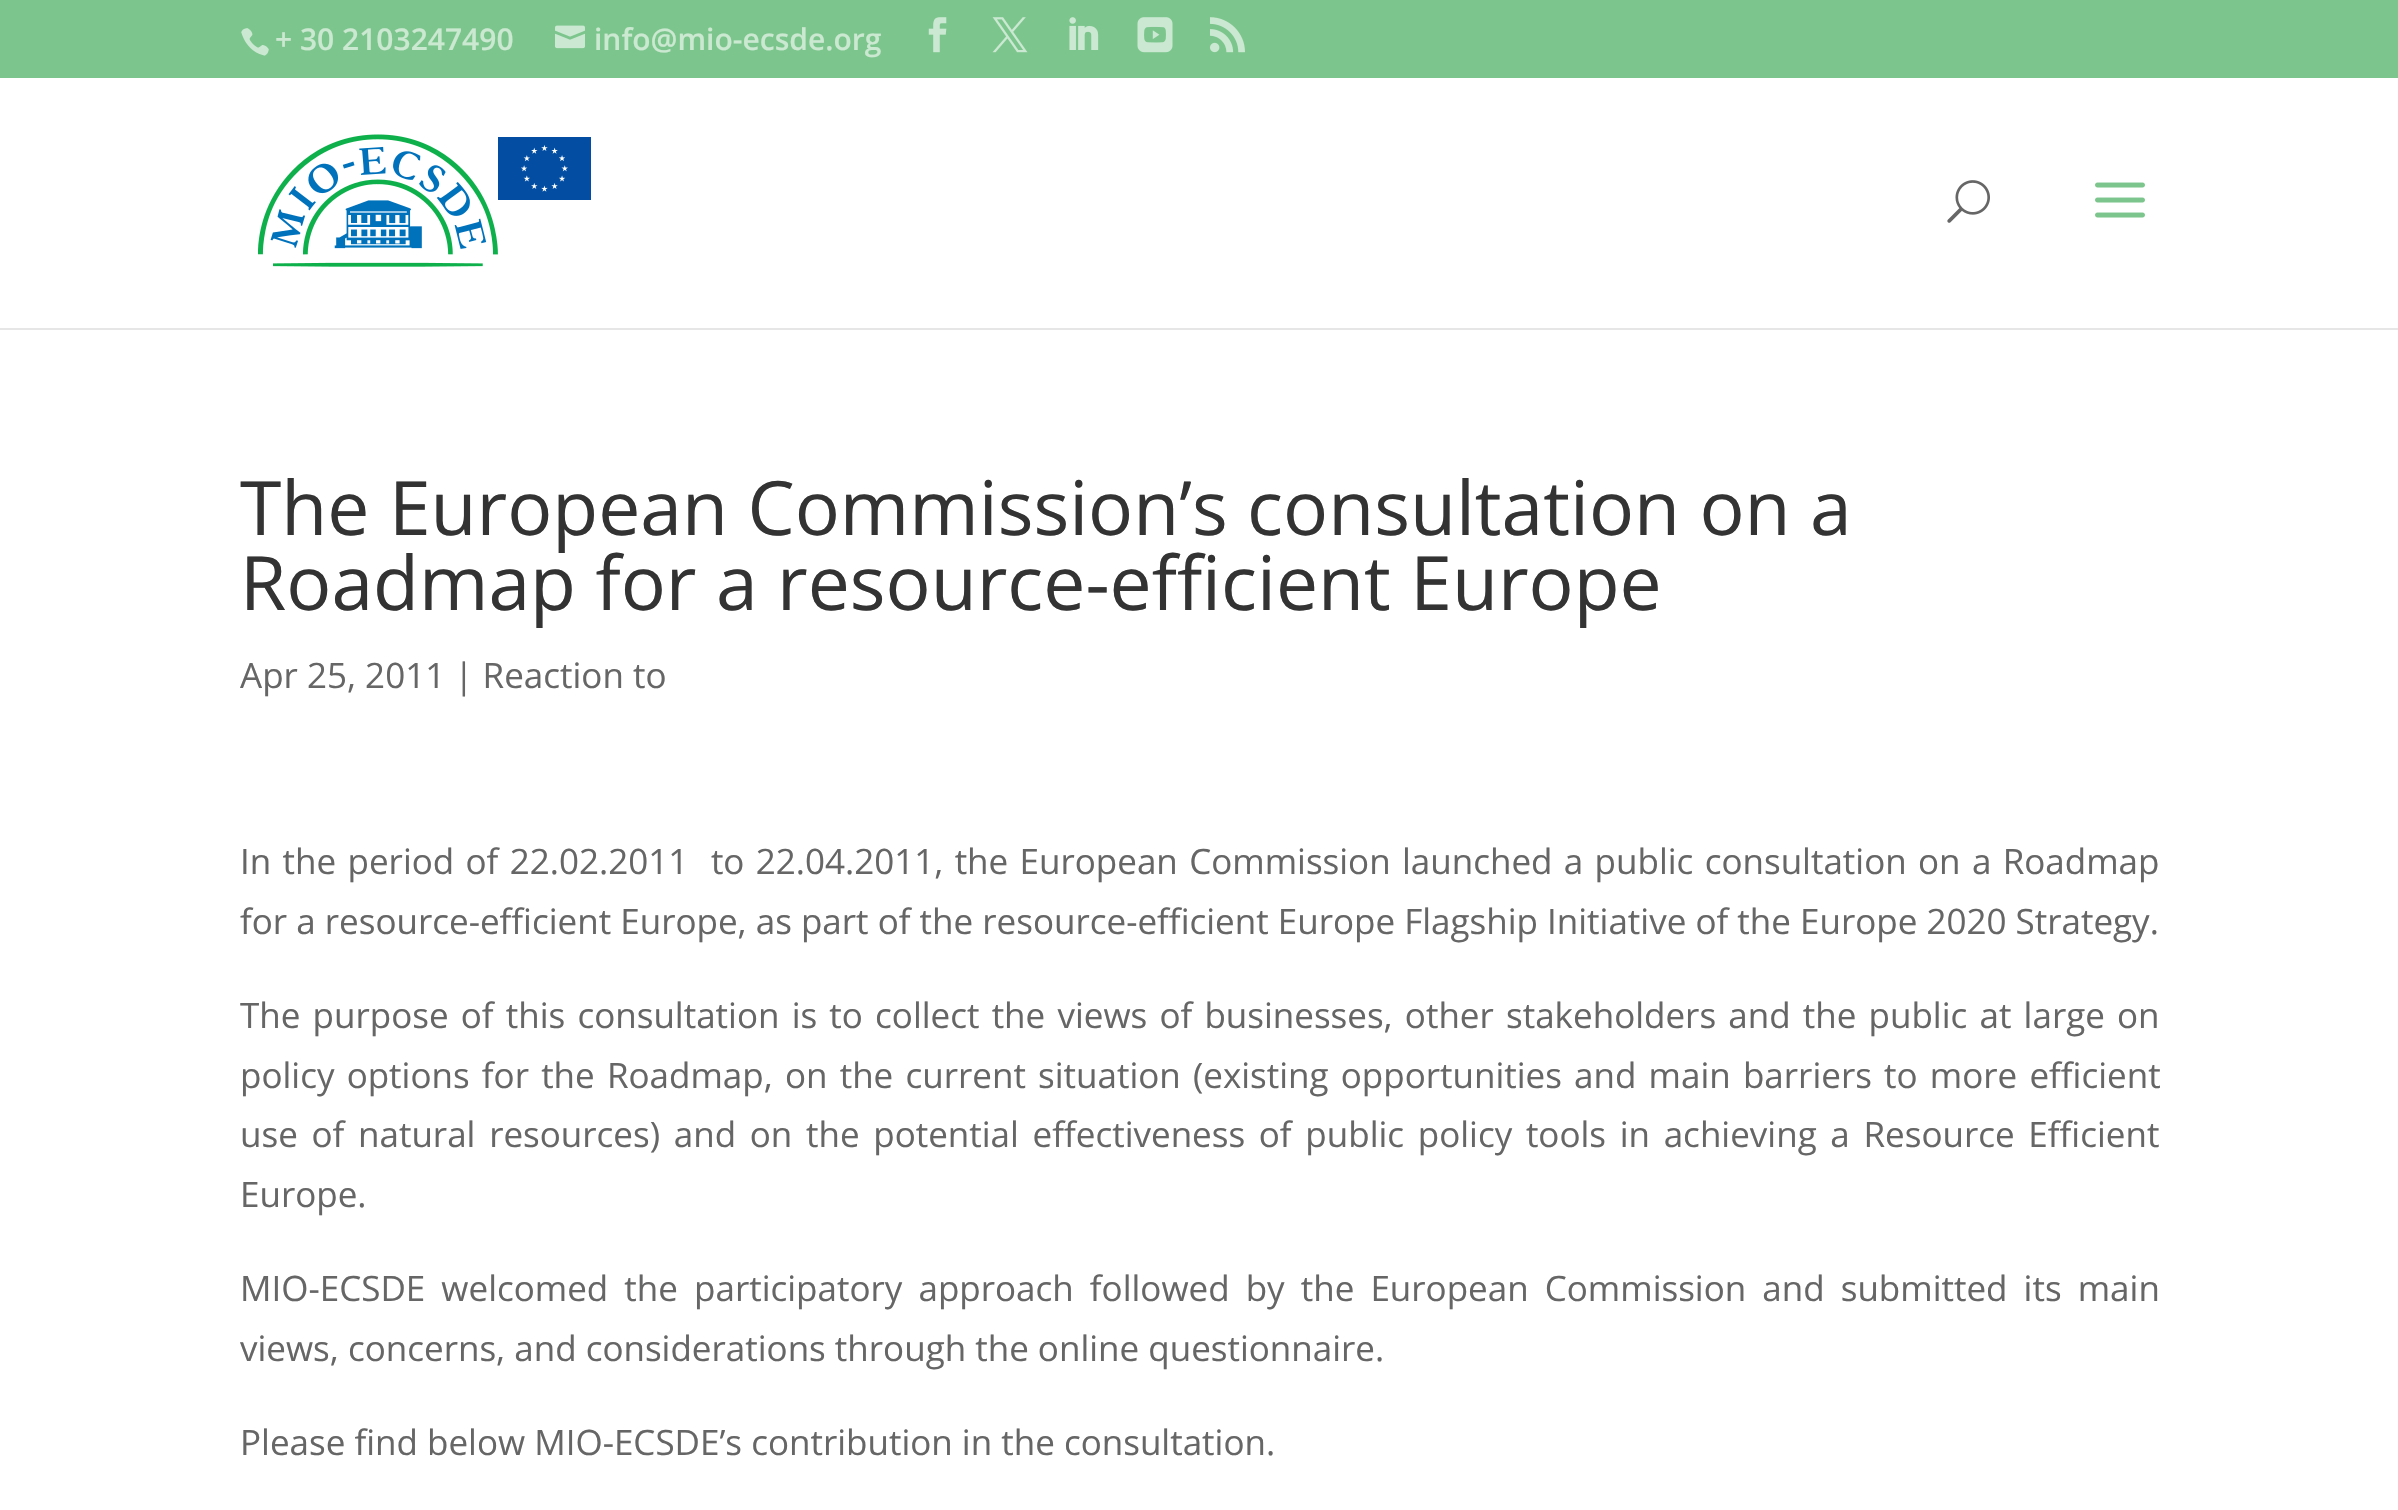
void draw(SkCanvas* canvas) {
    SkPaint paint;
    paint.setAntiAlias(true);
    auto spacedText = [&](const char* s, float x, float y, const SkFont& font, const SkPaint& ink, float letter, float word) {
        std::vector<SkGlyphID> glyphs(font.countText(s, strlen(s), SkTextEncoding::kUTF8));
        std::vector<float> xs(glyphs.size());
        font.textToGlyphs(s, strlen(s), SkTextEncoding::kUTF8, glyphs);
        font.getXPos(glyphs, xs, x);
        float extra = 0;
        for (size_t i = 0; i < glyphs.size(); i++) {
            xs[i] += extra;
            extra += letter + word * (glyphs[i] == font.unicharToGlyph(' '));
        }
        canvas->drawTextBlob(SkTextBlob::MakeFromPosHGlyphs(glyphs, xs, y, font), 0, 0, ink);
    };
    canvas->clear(0xFFFFFFFF);
    paint.setColor(0xFF7CC68D);
    canvas->drawRect(SkRect::MakeXYWH(0, 0, 2398, 78), paint);
    canvas->drawImageRect(SkImages::DeferredFromEncodedData(SkData::MakeFromFileName("img1.png")), SkRect::MakeXYWH(241, 28, 28, 28), SkSamplingOptions());
    SkFont font1(fontMgr->matchFamilyStyle("Open Sans", SkFontStyle(600, SkFontStyle::kNormal_Width, SkFontStyle::kUpright_Slant)), 30);
    font1.setSubpixel(true);
    paint.setColor(0xFFCBE8D1);
    canvas->drawString("+ 30 2103247490", 275, 50, font1, paint);
    canvas->drawImageRect(SkImages::DeferredFromEncodedData(SkData::MakeFromFileName("img2.png")), SkRect::MakeXYWH(555, 25, 30, 24), SkSamplingOptions());
    canvas->drawString("info@mio-ecsde.org", 594, 50, font1, paint);
    canvas->drawImageRect(SkImages::DeferredFromEncodedData(SkData::MakeFromFileName("img3.png")), SkRect::MakeXYWH(928, 17, 19, 36), SkSamplingOptions());
    canvas->drawImageRect(SkImages::DeferredFromEncodedData(SkData::MakeFromFileName("img4.png")), SkRect::MakeXYWH(992, 17, 36, 36), SkSamplingOptions());
    canvas->drawImageRect(SkImages::DeferredFromEncodedData(SkData::MakeFromFileName("img5.png")), SkRect::MakeXYWH(1069, 17, 30, 33), SkSamplingOptions());
    canvas->drawImageRect(SkImages::DeferredFromEncodedData(SkData::MakeFromFileName("img6.png")), SkRect::MakeXYWH(1137, 17, 36, 36), SkSamplingOptions());
    canvas->drawImageRect(SkImages::DeferredFromEncodedData(SkData::MakeFromFileName("img7.png")), SkRect::MakeXYWH(1210, 17, 35, 36), SkSamplingOptions());
    paint.setColor(0xFFE6E6E6);
    canvas->drawRect(SkRect::MakeXYWH(0, 328, 2398, 2), paint);
    canvas->drawImageRect(SkImages::DeferredFromEncodedData(SkData::MakeFromFileName("img8.png")), SkRect::MakeXYWH(258, 134, 333, 133), SkSamplingOptions());
    canvas->drawImageRect(SkImages::DeferredFromEncodedData(SkData::MakeFromFileName("img9.png")), SkRect::MakeXYWH(1947, 180, 43, 43), SkSamplingOptions());
    canvas->drawImageRect(SkImages::DeferredFromEncodedData(SkData::MakeFromFileName("img10.png")), SkRect::MakeXYWH(2095, 182, 50, 36), SkSamplingOptions());
    SkFont font2(fontMgr->matchFamilyStyle("Open Sans", SkFontStyle::Normal()), 75);
    font2.setSubpixel(true);
    paint.setColor(0xFF333333);
    canvas->drawString("The European Commission’s consultation on a", 240, 535, font2, paint);
    canvas->drawString("Roadmap for a resource-efficient Europe", 240, 610, font2, paint);
    SkFont font3(fontMgr->matchFamilyStyle("Open Sans", SkFontStyle::Normal()), 35);
    font3.setSubpixel(true);
    paint.setColor(0xFF666666);
    canvas->drawString("Apr 25, 2011 | Reaction to", 240, 688, font3, paint);
    spacedText("In the period of 22.02.2011  to 22.04.2011, the European Commission launched a public consultation on a Roadmap", 240, 874, font3, paint, 0, 2.25f);
    canvas->drawString("for a resource-efficient Europe, as part of the resource-efficient Europe Flagship Initiative of the Europe 2020 Strategy.", 240, 934, font3, paint);
    spacedText("The purpose of this consultation is to collect the views of businesses, other stakeholders and the public at large on", 240, 1028, font3, paint, 0, 3.1f);
    spacedText("policy options for the Roadmap, on the current situation (existing opportunities and main barriers to more efficient", 240, 1088, font3, paint, 0, 3.1f);
    spacedText("use of natural resources) and on the potential effectiveness of public policy tools in achieving a Resource Efficient", 240, 1147, font3, paint, 0, 4.6f);
    canvas->drawString("Europe.", 240, 1207, font3, paint);
    spacedText("MIO-ECSDE welcomed the participatory approach followed by the European Commission and submitted its main", 240, 1301, font3, paint, 0, 7);
    canvas->drawString("views, concerns, and considerations through the online questionnaire.", 240, 1361, font3, paint);
    canvas->drawString("Please find below MIO-ECSDE’s contribution in the consultation.", 240, 1455, font3, paint);
}
